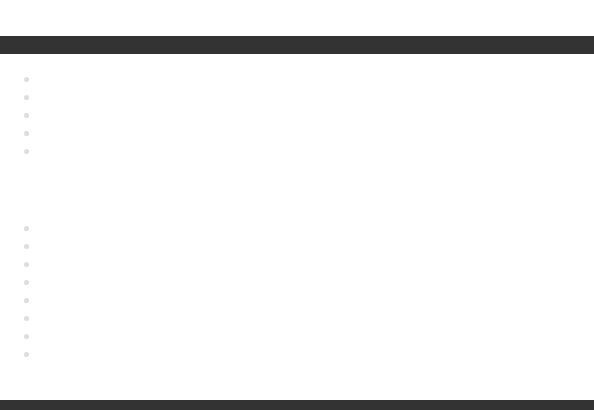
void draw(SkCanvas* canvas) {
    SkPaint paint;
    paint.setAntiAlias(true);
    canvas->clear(0xFFFFFFFF);
    paint.setColor(0xFF333333);
    canvas->drawRect(SkRect::MakeXYWH(0, 36, 594, 18), paint);
    paint.setColor(0xFFDDDDDD);
    canvas->drawCircle(26.5f, 79.5f, 2.5f, paint);
    canvas->drawCircle(26.5f, 97.5f, 2.5f, paint);
    canvas->drawCircle(26.5f, 115.5f, 2.5f, paint);
    canvas->drawCircle(26.5f, 133.5f, 2.5f, paint);
    canvas->drawCircle(26.5f, 151.5f, 2.5f, paint);
    canvas->drawCircle(26.5f, 228.5f, 2.5f, paint);
    canvas->drawCircle(26.5f, 246.5f, 2.5f, paint);
    canvas->drawCircle(26.5f, 264.5f, 2.5f, paint);
    canvas->drawCircle(26.5f, 282.5f, 2.5f, paint);
    canvas->drawCircle(26.5f, 300.5f, 2.5f, paint);
    canvas->drawCircle(26.5f, 318.5f, 2.5f, paint);
    canvas->drawCircle(26.5f, 336.5f, 2.5f, paint);
    canvas->drawCircle(26.5f, 354.5f, 2.5f, paint);
    paint.setColor(0xFF333333);
    canvas->drawRect(SkRect::MakeXYWH(0, 400, 594, 10), paint);
}
